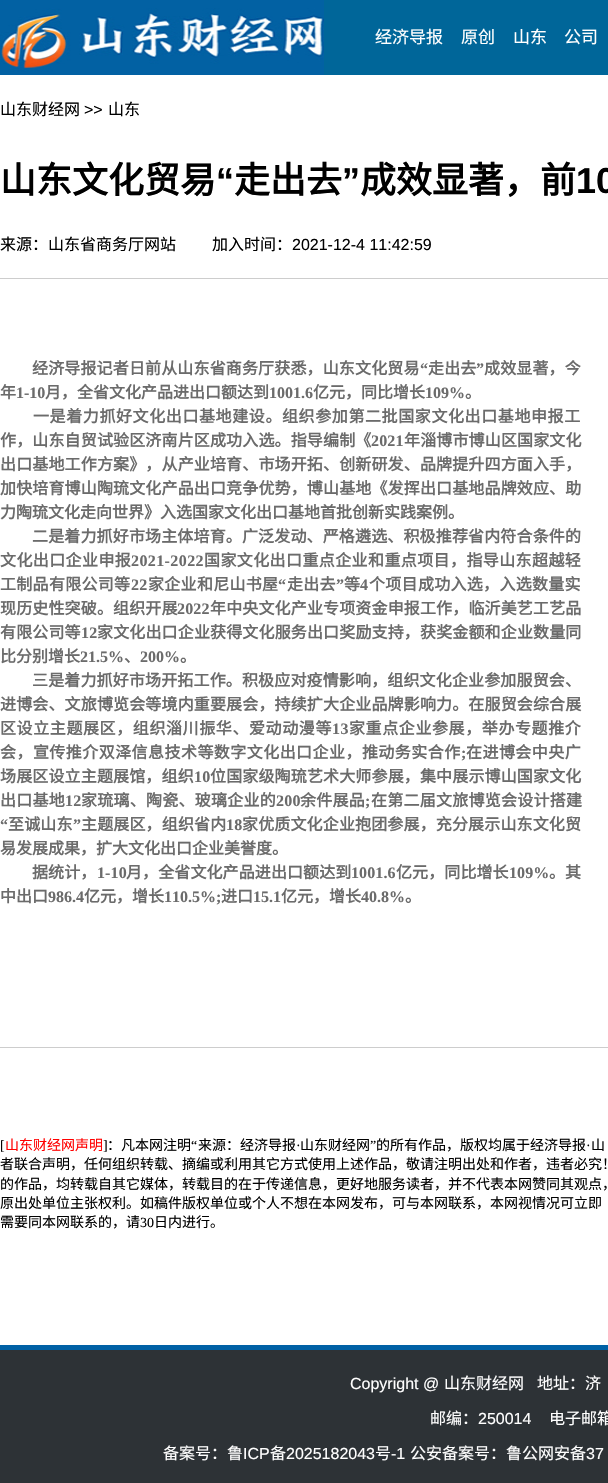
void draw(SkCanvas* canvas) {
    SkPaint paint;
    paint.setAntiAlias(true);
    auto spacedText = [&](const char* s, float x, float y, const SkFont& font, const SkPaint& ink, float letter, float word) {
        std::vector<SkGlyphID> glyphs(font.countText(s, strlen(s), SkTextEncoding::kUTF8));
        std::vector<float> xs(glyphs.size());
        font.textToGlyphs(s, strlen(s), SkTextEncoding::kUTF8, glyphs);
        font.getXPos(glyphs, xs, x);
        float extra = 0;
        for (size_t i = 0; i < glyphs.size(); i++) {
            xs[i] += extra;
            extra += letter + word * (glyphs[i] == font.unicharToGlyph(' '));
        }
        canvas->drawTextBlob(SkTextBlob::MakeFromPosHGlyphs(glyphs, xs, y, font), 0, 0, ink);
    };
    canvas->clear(0xFFFFFFFF);
    paint.setColor(0xFF006699);
    canvas->drawRect(SkRect::MakeXYWH(324, 0, 284, 75), paint);
    canvas->drawImageRect(SkImages::DeferredFromEncodedData(SkData::MakeFromFileName("img1.png")), SkRect::MakeXYWH(0, 0, 324, 75), SkSamplingOptions());
    SkFont font1(fontMgr->matchFamilyStyle("Noto Sans CJK SC", SkFontStyle::Normal()), 17);
    font1.setSubpixel(true);
    paint.setColor(0xFFFFFFFF);
    canvas->drawString("经济导报", 375, 43, font1, paint);
    canvas->drawString("原创", 461, 43, font1, paint);
    canvas->drawString("山东", 513, 43, font1, paint);
    canvas->drawString("公司", 564, 43, font1, paint);
    SkFont font2(fontMgr->matchFamilyStyle("Noto Sans CJK SC", SkFontStyle::Normal()), 16);
    font2.setSubpixel(true);
    paint.setColor(0xFF000000);
    canvas->drawString("山东财经网", 0, 115, font2, paint);
    SkFont font3(fontMgr->matchFamilyStyle("Liberation Sans", SkFontStyle::Normal()), 16);
    font3.setSubpixel(true);
    canvas->drawString(">>", 84, 115, font3, paint);
    canvas->drawString("山东", 108, 115, font2, paint);
    SkFont font4(fontMgr->matchFamilyStyle("Noto Sans CJK SC", SkFontStyle::Bold()), 36);
    font4.setSubpixel(true);
    canvas->drawString("山东文化贸易", 0, 193, font4, paint);
    SkFont font5(fontMgr->matchFamilyStyle("Liberation Sans", SkFontStyle::Bold()), 36);
    font5.setSubpixel(true);
    canvas->drawString("“", 216, 193, font5, paint);
    canvas->drawString("走出去", 234, 193, font4, paint);
    canvas->drawString("”", 342, 193, font5, paint);
    canvas->drawString("成效显著，前", 360, 193, font4, paint);
    canvas->drawString("10", 576, 193, font5, paint);
    canvas->drawString("来源：山东省商务厅网站", 0, 250, font2, paint);
    canvas->drawString("加入时间：", 212, 250, font2, paint);
    canvas->drawString("2021-12-4 11:42:59", 292, 250, font3, paint);
    paint.setColor(0xFFCDCDCD);
    canvas->drawRect(SkRect::MakeXYWH(0, 278, 608, 1), paint);
    SkFont font6(fontMgr->matchFamilyStyle("Noto Sans CJK SC", SkFontStyle::Bold()), 16);
    font6.setSubpixel(true);
    paint.setColor(0xFF6B6B6B);
    spacedText("经济导报记者日前从山东省商务厅获悉，山东文化贸易", 32, 374, font6, paint, 0.15f, 0);
    SkFont font7(fontMgr->matchFamilyStyle("Liberation Serif", SkFontStyle::Bold()), 16);
    font7.setSubpixel(true);
    spacedText("“", 420, 374, font7, paint, 0.15f, 0);
    spacedText("走出去", 428, 374, font6, paint, 0.15f, 0);
    spacedText("”", 476, 374, font7, paint, 0.15f, 0);
    spacedText("成效显著，今", 484, 374, font6, paint, 0.15f, 0);
    canvas->drawString("年", 0, 398, font6, paint);
    canvas->drawString("1-10", 16, 398, font7, paint);
    canvas->drawString("月，全省文化产品进出口额达到", 45, 398, font6, paint);
    canvas->drawString("1001.6", 269, 398, font7, paint);
    canvas->drawString("亿元，同比增长", 313, 398, font6, paint);
    canvas->drawString("109%", 425, 398, font7, paint);
    canvas->drawString("。", 465, 398, font6, paint);
    spacedText("一是着力抓好文化出口基地建设。组织参加第二批国家文化出口基地申报工", 33, 422, font6, paint, 0.6f, 0);
    spacedText("作，山东自贸试验区济南片区成功入选。指导编制《", 0, 446, font6, paint, 0.15f, 0);
    spacedText("2021", 371, 446, font7, paint, 0.15f, 0);
    spacedText("年淄博市博山区国家文化", 404, 446, font6, paint, 0.15f, 0);
    spacedText("出口基地工作方案》，从产业培育、市场开拓、创新研发、品牌提升四方面入手，", 0, 470, font6, paint, 0.15f, 0);
    spacedText("加快培育博山陶琉文化产品出口竞争优势，博山基地《发挥出口基地品牌效应、助", 0, 494, font6, paint, 0.15f, 0);
    canvas->drawString("力陶琉文化走向世界》入选国家文化出口基地首批创新实践案例。", 0, 518, font6, paint);
    spacedText("二是着力抓好市场主体培育。广泛发动、严格遴选、积极推荐省内符合条件的", 32, 542, font6, paint, 0.15f, 0);
    spacedText("文化出口企业申报", 0, 566, font6, paint, 0.4f, 0);
    spacedText("2021-2022", 131, 566, font7, paint, 0.4f, 0);
    spacedText("国家文化出口重点企业和重点项目，指导山东超越轻", 204, 566, font6, paint, 0.4f, 0);
    spacedText("工制品有限公司等", 0, 590, font6, paint, 0.3f, 0);
    spacedText("22", 131, 590, font7, paint, 0.3f, 0);
    spacedText("家企业和尼山书屋", 148, 590, font6, paint, 0.3f, 0);
    spacedText("“", 278, 590, font7, paint, 0.3f, 0);
    spacedText("走出去", 287, 590, font6, paint, 0.3f, 0);
    spacedText("”", 336, 590, font7, paint, 0.3f, 0);
    spacedText("等", 344, 590, font6, paint, 0.3f, 0);
    spacedText("4", 360, 590, font7, paint, 0.3f, 0);
    spacedText("个项目成功入选，入选数量实", 369, 590, font6, paint, 0.3f, 0);
    spacedText("现历史性突破。组织开展", 0, 614, font6, paint, 0.15f, 0);
    spacedText("2022", 177, 614, font7, paint, 0.15f, 0);
    spacedText("年中央文化产业专项资金申报工作，临沂美艺工艺品", 210, 614, font6, paint, 0.15f, 0);
    spacedText("有限公司等", 0, 638, font6, paint, 0.15f, 0);
    spacedText("12", 81, 638, font7, paint, 0.15f, 0);
    spacedText("家文化出口企业获得文化服务出口奖励支持，获奖金额和企业数量同", 97, 638, font6, paint, 0.15f, 0);
    canvas->drawString("比分别增长", 0, 662, font6, paint);
    canvas->drawString("21.5%", 80, 662, font7, paint);
    canvas->drawString("、", 124, 662, font6, paint);
    canvas->drawString("200%", 140, 662, font7, paint);
    canvas->drawString("。", 180, 662, font6, paint);
    spacedText("三是着力抓好市场开拓工作。积极应对疫情影响，组织文化企业参加服贸会、", 32, 686, font6, paint, 0.15f, 0);
    spacedText("进博会、文旅博览会等境内重要展会，持续扩大企业品牌影响力。在服贸会综合展", 0, 710, font6, paint, 0.15f, 0);
    spacedText("区设立主题展区，组织淄川振华、爱动动漫等", 0, 734, font6, paint, 0.6f, 0);
    spacedText("13", 332, 734, font7, paint, 0.6f, 0);
    spacedText("家重点企业参展，举办专题推介", 349, 734, font6, paint, 0.6f, 0);
    spacedText("会，宣传推介双泽信息技术等数字文化出口企业，推动务实合作", 0, 758, font6, paint, 0.45f, 0);
    spacedText(";", 461, 758, font7, paint, 0.45f, 0);
    spacedText("在进博会中央广", 466, 758, font6, paint, 0.45f, 0);
    spacedText("场展区设立主题展馆，组织", 0, 782, font6, paint, 0.15f, 0);
    spacedText("10", 194, 782, font7, paint, 0.15f, 0);
    spacedText("位国家级陶琉艺术大师参展，集中展示博山国家文化", 210, 782, font6, paint, 0.15f, 0);
    spacedText("出口基地", 0, 806, font6, paint, 0.25f, 0);
    spacedText("12", 65, 806, font7, paint, 0.25f, 0);
    spacedText("家琉璃、陶瓷、玻璃企业的", 81, 806, font6, paint, 0.25f, 0);
    spacedText("200", 276, 806, font7, paint, 0.25f, 0);
    spacedText("余件展品", 300, 806, font6, paint, 0.25f, 0);
    spacedText(";", 365, 806, font7, paint, 0.25f, 0);
    spacedText("在第二届文旅博览会设计搭建", 371, 806, font6, paint, 0.25f, 0);
    spacedText("“", 0, 830, font7, paint, 0.15f, 0);
    spacedText("至诚山东", 8, 830, font6, paint, 0.15f, 0);
    spacedText("”", 73, 830, font7, paint, 0.15f, 0);
    spacedText("主题展区，组织省内", 81, 830, font6, paint, 0.15f, 0);
    spacedText("18", 226, 830, font7, paint, 0.15f, 0);
    spacedText("家优质文化企业抱团参展，充分展示山东文化贸", 242, 830, font6, paint, 0.15f, 0);
    canvas->drawString("易发展成果，扩大文化出口企业美誉度。", 0, 854, font6, paint);
    spacedText("据统计，", 32, 878, font6, paint, 0.1f, 0);
    spacedText("1-10", 97, 878, font7, paint, 0.1f, 0);
    spacedText("月，全省文化产品进出口额达到", 126, 878, font6, paint, 0.1f, 0);
    spacedText("1001.6", 351, 878, font7, paint, 0.1f, 0);
    spacedText("亿元，同比增长", 396, 878, font6, paint, 0.1f, 0);
    spacedText("109%", 509, 878, font7, paint, 0.1f, 0);
    spacedText("。其", 549, 878, font6, paint, 0.1f, 0);
    canvas->drawString("中出口", 0, 902, font6, paint);
    canvas->drawString("986.4", 48, 902, font7, paint);
    canvas->drawString("亿元，增长", 84, 902, font6, paint);
    canvas->drawString("110.5%;", 164, 902, font7, paint);
    canvas->drawString("进口", 221, 902, font6, paint);
    canvas->drawString("15.1", 253, 902, font7, paint);
    canvas->drawString("亿元，增长", 281, 902, font6, paint);
    canvas->drawString("40.8%", 361, 902, font7, paint);
    canvas->drawString("。", 405, 902, font6, paint);
    paint.setColor(0xFFCDCDCD);
    canvas->drawRect(SkRect::MakeXYWH(0, 1047, 608, 1), paint);
    SkFont font8(fontMgr->matchFamilyStyle("Liberation Serif", SkFontStyle::Normal()), 14);
    font8.setSubpixel(true);
    paint.setColor(0xFF000000);
    canvas->drawString("[", 0, 1150, font8, paint);
    SkFont font9(fontMgr->matchFamilyStyle("Noto Sans CJK SC", SkFontStyle::Normal()), 14);
    font9.setSubpixel(true);
    paint.setColor(0xFFFF0000);
    canvas->drawString("山东财经网声明", 5, 1150, font9, paint);
    paint.setColor(0xFF000000);
    canvas->drawString("]", 103, 1150, font8, paint);
    canvas->drawString("：凡本网注明", 107, 1150, font9, paint);
    canvas->drawString("“", 191, 1150, font8, paint);
    canvas->drawString("来源：经济导报", 198, 1150, font9, paint);
    canvas->drawString("山东财经网", 300, 1150, font9, paint);
    canvas->drawString("”", 370, 1150, font8, paint);
    canvas->drawString("的所有作品，版权均属于经济导报", 376, 1150, font9, paint);
    canvas->drawString("山", 591, 1150, font9, paint);
    canvas->drawString("·", 296, 1150, font8, paint);
    canvas->drawString("·", 586, 1150, font8, paint);
    canvas->drawString("者联合声明，任何组织转载、摘编或利用其它方式使用上述作品，敬请注明出处和作者，违者必究！", 0, 1169, font9, paint);
    canvas->drawString("的作品，均转载自其它媒体，转载目的在于传递信息，更好地服务读者，并不代表本网赞同其观点，", 0, 1189, font9, paint);
    canvas->drawString("原出处单位主张权利。如稿件版权单位或个人不想在本网发布，可与本网联系，本网视情况可立即", 0, 1208, font9, paint);
    canvas->drawString("需要同本网联系的，请", 0, 1227, font9, paint);
    canvas->drawString("30", 140, 1227, font8, paint);
    canvas->drawString("日内进行。", 154, 1227, font9, paint);
    paint.setColor(0xFF0061A5);
    canvas->drawRect(SkRect::MakeXYWH(0, 1345, 608, 5), paint);
    paint.setColor(0xFF2D3236);
    canvas->drawRect(SkRect::MakeXYWH(0, 1350, 608, 133), paint);
    paint.setColor(0xFFFFFFFF);
    canvas->drawString("Copyright @", 350, 1389, font3, paint);
    canvas->drawString("山东财经网", 444, 1389, font2, paint);
    canvas->drawString("地址：济", 537, 1389, font2, paint);
    canvas->drawString("邮编：", 430, 1424, font2, paint);
    canvas->drawString("250014", 478, 1424, font3, paint);
    canvas->drawString("电子邮箱", 549, 1424, font2, paint);
    canvas->drawString("备案号：鲁", 163, 1459, font2, paint);
    canvas->drawString("ICP", 243, 1459, font3, paint);
    canvas->drawString("备", 270, 1459, font2, paint);
    canvas->drawString("2025182043", 286, 1459, font3, paint);
    canvas->drawString("号", 375, 1459, font2, paint);
    canvas->drawString("-1", 391, 1459, font3, paint);
    canvas->drawString("公安备案号：鲁公网安备", 410, 1459, font2, paint);
    canvas->drawString("37", 586, 1459, font3, paint);
}
